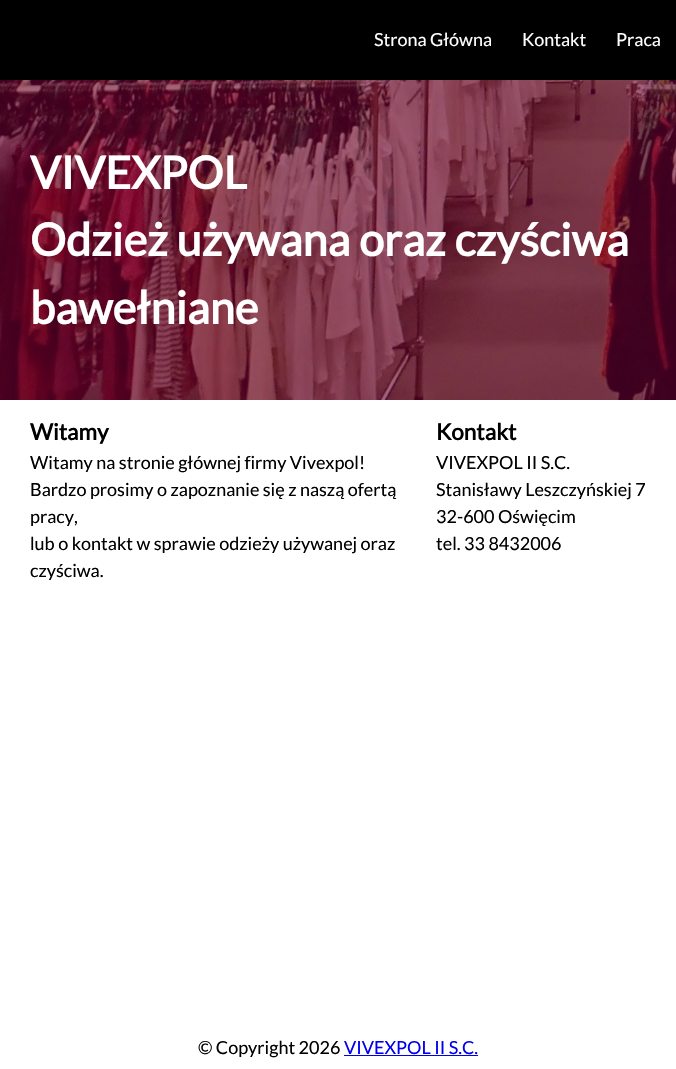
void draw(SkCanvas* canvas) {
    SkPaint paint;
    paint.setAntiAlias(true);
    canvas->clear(0xFFFFFFFF);
    paint.setColor(0xFF000000);
    canvas->drawRect(SkRect::MakeXYWH(0, 0, 676, 80), paint);
    SkFont font1(fontMgr->matchFamilyStyle("Lato", SkFontStyle::Normal()), 18);
    font1.setSubpixel(true);
    paint.setColor(0xFFFFFFFF);
    canvas->drawString("Strona Główna", 374, 46, font1, paint);
    canvas->drawString("Kontakt", 522, 46, font1, paint);
    canvas->drawString("Praca", 616, 46, font1, paint);
    canvas->drawImageRect(SkImages::DeferredFromEncodedData(SkData::MakeFromFileName("img1.png")), SkRect::MakeXYWH(0, 80, 676, 320), SkSamplingOptions());
    SkFont font2(fontMgr->matchFamilyStyle("Lato", SkFontStyle::Bold()), 45);
    font2.setSubpixel(true);
    canvas->drawString("VIVEXPOL", 30, 189, font2, paint);
    canvas->drawString("Odzież używana oraz czyściwa", 30, 256, font2, paint);
    canvas->drawString("bawełniane", 30, 324, font2, paint);
    SkFont font3(fontMgr->matchFamilyStyle("Lato", SkFontStyle::Bold()), 22.5f);
    font3.setSubpixel(true);
    paint.setColor(0xFF000000);
    canvas->drawString("Witamy", 30, 440, font3, paint);
    canvas->drawString("Witamy na stronie głównej firmy Vivexpol!", 30, 469, font1, paint);
    canvas->drawString("Bardzo prosimy o zapoznanie się z naszą ofertą", 30, 496, font1, paint);
    canvas->drawString("pracy,", 30, 523, font1, paint);
    canvas->drawString("lub o kontakt w sprawie odzieży używanej oraz", 30, 550, font1, paint);
    canvas->drawString("czyściwa.", 30, 577, font1, paint);
    canvas->drawString("Kontakt", 436, 440, font3, paint);
    canvas->drawString("VIVEXPOL II S.C.", 436, 469, font1, paint);
    canvas->drawString("Stanisławy Leszczyńskiej 7", 436, 496, font1, paint);
    canvas->drawString("32-600 Oświęcim", 436, 523, font1, paint);
    canvas->drawString("tel. 33 8432006", 436, 550, font1, paint);
    canvas->drawString("© Copyright 2026", 198, 1054, font1, paint);
    paint.setColor(0xFF0000EE);
    canvas->drawString("VIVEXPOL II S.C.", 344, 1054, font1, paint);
    canvas->drawRect(SkRect::MakeXYWH(344, 1055, 134, 1), paint);
}
